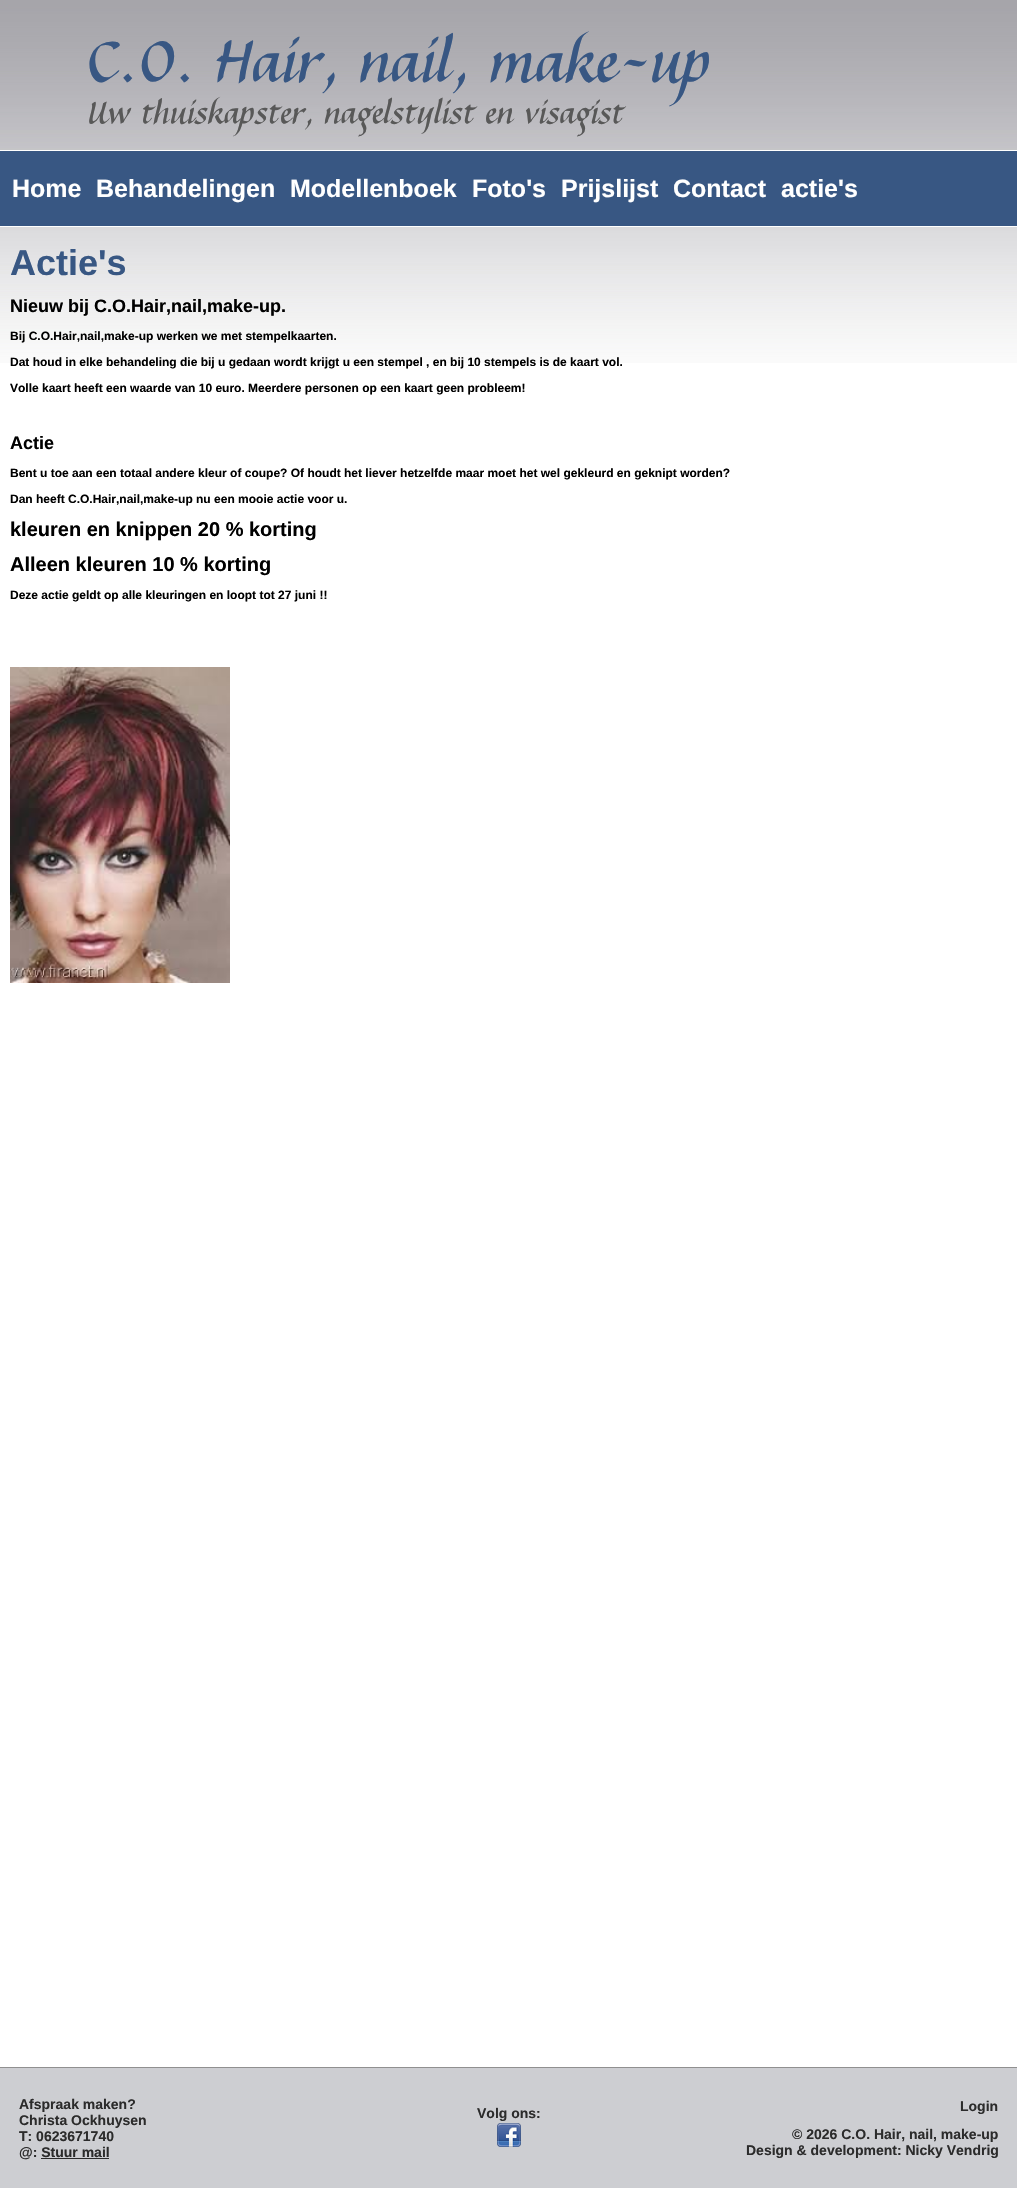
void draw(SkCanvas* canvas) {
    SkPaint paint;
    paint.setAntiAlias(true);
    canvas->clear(0xFFFFFFFF);
    canvas->drawImageRect(SkImages::DeferredFromEncodedData(SkData::MakeFromFileName("img1.png")), SkRect::MakeXYWH(0, 0, 1017, 363), SkSamplingOptions());
    SkFont font1(fontMgr->matchFamilyStyle("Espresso", SkFontStyle::Bold()), 55);
    font1.setSubpixel(true);
    paint.setColor(0xFF385783);
    canvas->drawString("C.O. Hair, nail, make-up", 89, 81, font1, paint);
    SkFont font2(fontMgr->matchFamilyStyle("Espresso", SkFontStyle::Bold()), 29);
    font2.setSubpixel(true);
    paint.setColor(0xFF585858);
    canvas->drawString("Uw thuiskapster, nagelstylist en visagist", 89, 123, font2, paint);
    paint.setColor(0xFF385783);
    canvas->drawRect(SkRect::MakeXYWH(0, 151, 1017, 75), paint);
    paint.setColor(0xFFFFFFFF);
    canvas->drawRect(SkRect::MakeXYWH(0, 150, 1017, 1), paint);
    canvas->drawRect(SkRect::MakeXYWH(0, 226, 1017, 1), paint);
    SkFont font3(fontMgr->matchFamilyStyle("Liberation Sans", SkFontStyle::Bold()), 25);
    font3.setSubpixel(true);
    canvas->drawString("Home", 12, 197, font3, paint);
    canvas->drawString("Behandelingen", 96, 197, font3, paint);
    canvas->drawString("Modellenboek", 290, 197, font3, paint);
    canvas->drawString("Foto's", 472, 197, font3, paint);
    canvas->drawString("Prijslijst", 561, 197, font3, paint);
    canvas->drawString("Contact", 673, 197, font3, paint);
    canvas->drawString("actie's", 781, 197, font3, paint);
    SkFont font4(fontMgr->matchFamilyStyle("Liberation Sans", SkFontStyle::Bold()), 36);
    font4.setSubpixel(true);
    paint.setColor(0xFF385783);
    canvas->drawString("Actie's", 10, 275, font4, paint);
    SkFont font5(fontMgr->matchFamilyStyle("Liberation Sans", SkFontStyle::Bold()), 18);
    font5.setSubpixel(true);
    paint.setColor(0xFF000000);
    canvas->drawString("Nieuw bij C.O.Hair,nail,make-up.", 10, 312, font5, paint);
    SkFont font6(fontMgr->matchFamilyStyle("Liberation Sans", SkFontStyle::Bold()), 12);
    font6.setSubpixel(true);
    canvas->drawString("Bij C.O.Hair,nail,make-up werken we met stempelkaarten.", 10, 340, font6, paint);
    canvas->drawString("Dat houd in elke behandeling die bij u gedaan wordt krijgt u een stempel , en bij 10 stempels is de kaart vol.", 10, 366, font6, paint);
    canvas->drawString("Volle kaart heeft een waarde van 10 euro. Meerdere personen op een kaart geen probleem!", 10, 392, font6, paint);
    canvas->drawString("Actie", 10, 449, font5, paint);
    canvas->drawString("Bent u toe aan een totaal andere kleur of coupe? Of houdt het liever hetzelfde maar moet het wel gekleurd en geknipt worden?", 10, 477, font6, paint);
    canvas->drawString("Dan heeft C.O.Hair,nail,make-up nu een mooie actie voor u.", 10, 503, font6, paint);
    SkFont font7(fontMgr->matchFamilyStyle("Liberation Sans", SkFontStyle::Bold()), 20);
    font7.setSubpixel(true);
    canvas->drawString("kleuren en knippen 20 % korting", 10, 536, font7, paint);
    canvas->drawString("Alleen kleuren 10 % korting", 10, 571, font7, paint);
    canvas->drawString("Deze actie geldt op alle kleuringen en loopt tot 27 juni !!", 10, 599, font6, paint);
    canvas->drawImageRect(SkImages::DeferredFromEncodedData(SkData::MakeFromFileName("img2.png")), SkRect::MakeXYWH(10, 667, 220, 316), SkSamplingOptions());
    paint.setColor(0xFFCDCED2);
    canvas->drawRect(SkRect::MakeXYWH(0, 2068, 1017, 120), paint);
    paint.setColor(0xFF909090);
    canvas->drawRect(SkRect::MakeXYWH(0, 2067, 1017, 1), paint);
    SkFont font8(fontMgr->matchFamilyStyle("Liberation Sans", SkFontStyle::Bold()), 14);
    font8.setSubpixel(true);
    paint.setColor(0xFF2B2B2B);
    canvas->drawString("Afspraak maken?", 19, 2109, font8, paint);
    canvas->drawString("Christa Ockhuysen", 19, 2125, font8, paint);
    canvas->drawString("T: 0623671740", 19, 2141, font8, paint);
    canvas->drawString("@: Stuur mail", 19, 2157, font8, paint);
    canvas->drawRect(SkRect::MakeXYWH(41, 2158, 68, 1), paint);
    canvas->drawString("Volg ons:", 477, 2118, font8, paint);
    canvas->drawImageRect(SkImages::DeferredFromEncodedData(SkData::MakeFromFileName("img3.png")), SkRect::MakeXYWH(497, 2123, 24, 24), SkSamplingOptions());
    canvas->drawString("Login", 960, 2111, font8, paint);
    canvas->drawString("© 2026 C.O. Hair, nail, make-up", 792, 2139, font8, paint);
    canvas->drawString("Design & development: Nicky Vendrig", 746, 2155, font8, paint);
}
